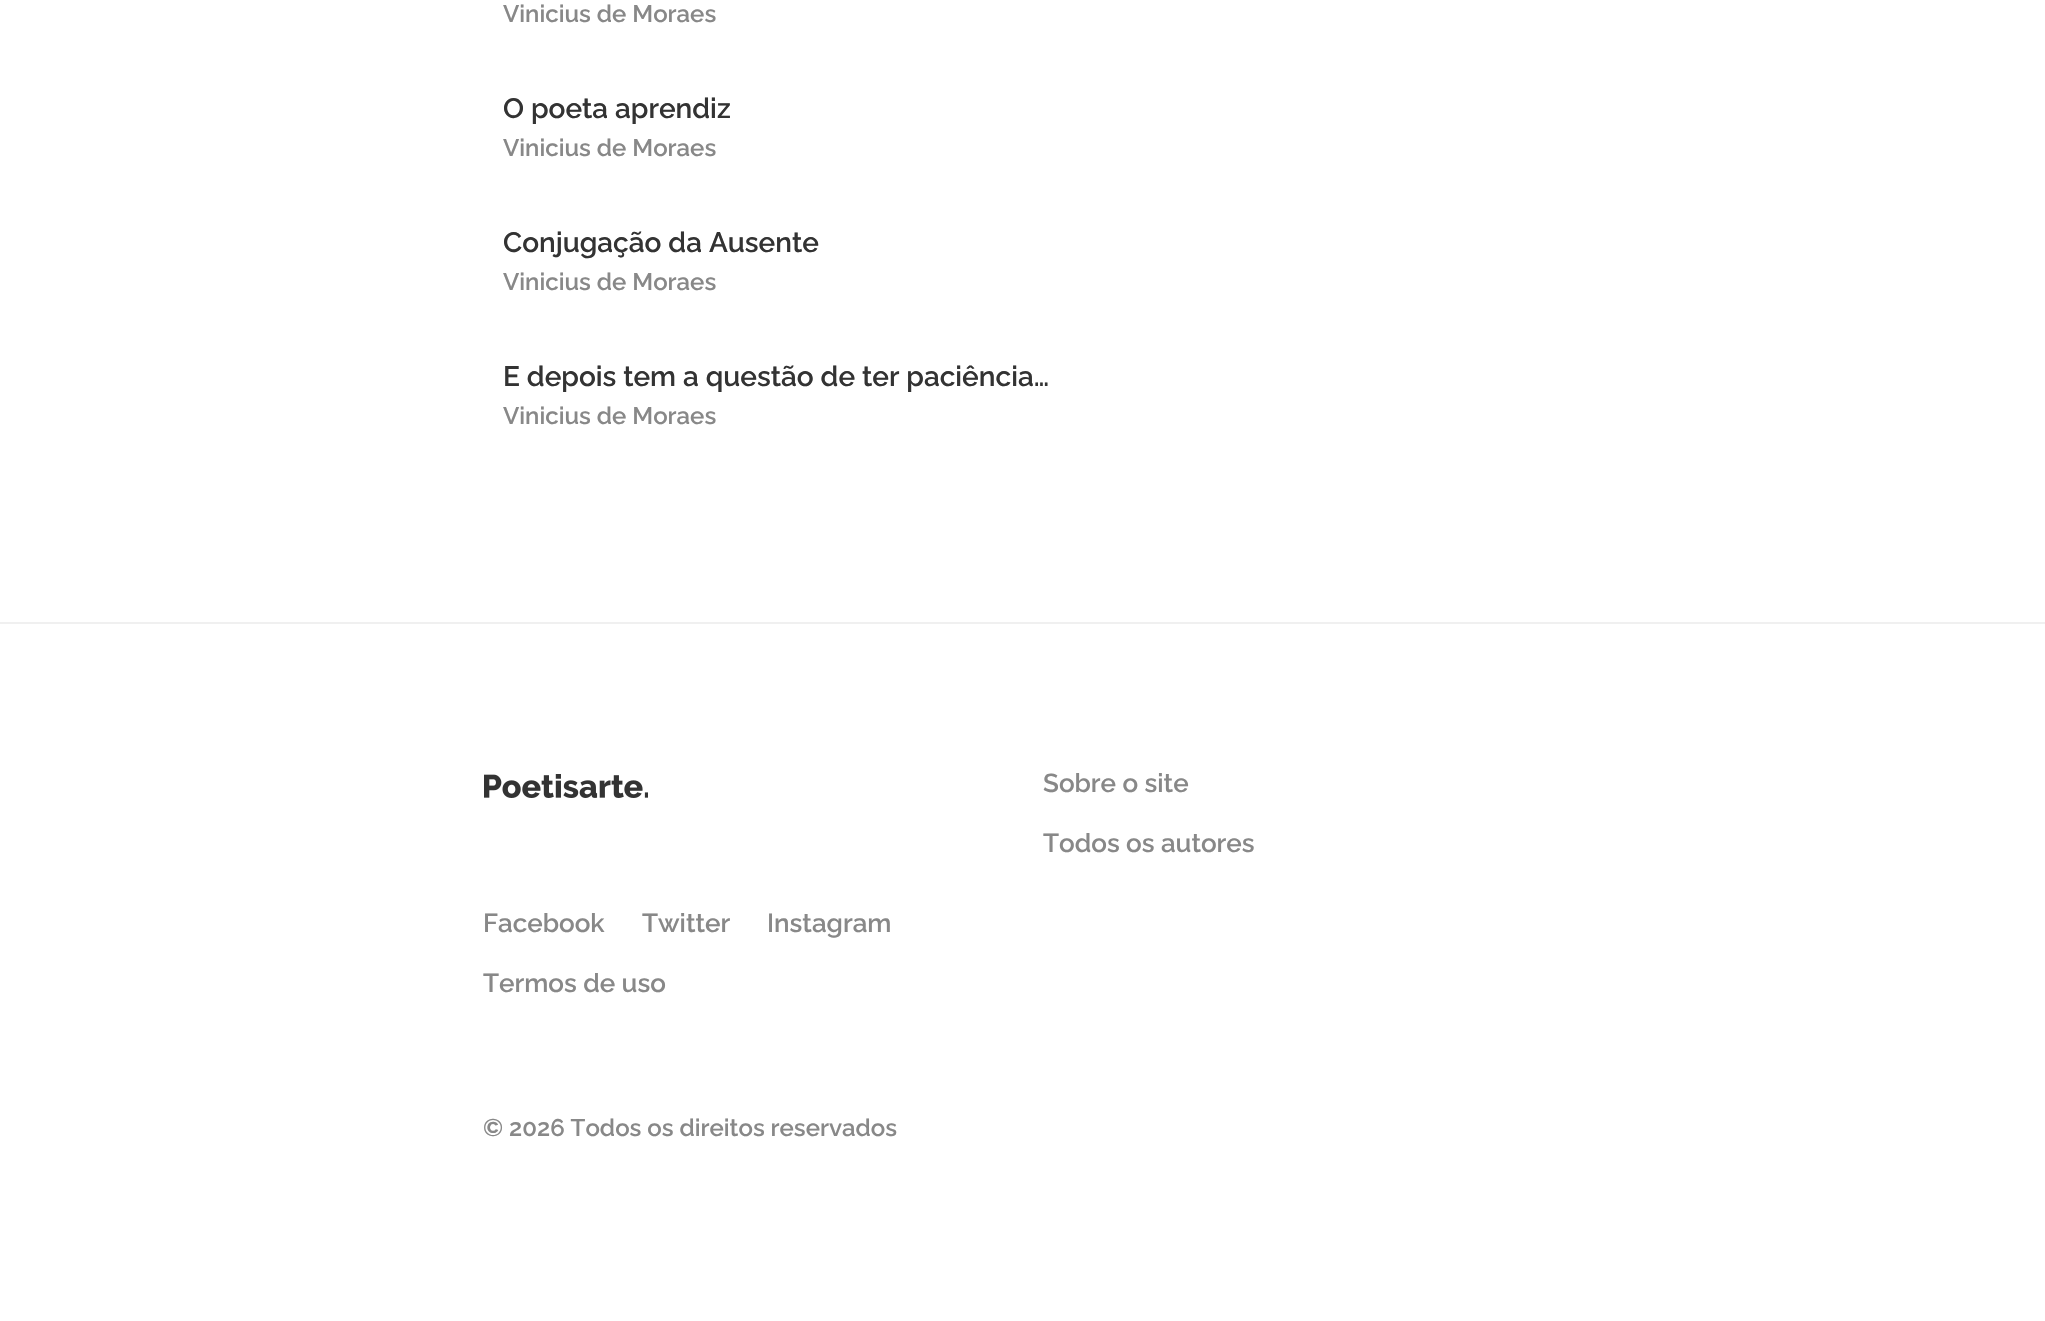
void draw(SkCanvas* canvas) {
    SkPaint paint;
    paint.setAntiAlias(true);
    canvas->clear(0xFFFFFFFF);
    SkFont font1(fontMgr->matchFamilyStyle("Raleway", SkFontStyle(600, SkFontStyle::kNormal_Width, SkFontStyle::kUpright_Slant)), 24);
    font1.setSubpixel(true);
    paint.setColor(0xFF888888);
    canvas->drawString("Vinicius de Moraes", 503, 22, font1, paint);
    SkFont font2(fontMgr->matchFamilyStyle("Raleway", SkFontStyle(600, SkFontStyle::kNormal_Width, SkFontStyle::kUpright_Slant)), 28);
    font2.setSubpixel(true);
    paint.setColor(0xFF333333);
    canvas->drawString("O poeta aprendiz", 503, 118, font2, paint);
    paint.setColor(0xFF888888);
    canvas->drawString("Vinicius de Moraes", 503, 156, font1, paint);
    paint.setColor(0xFF333333);
    canvas->drawString("Conjugação da Ausente", 503, 252, font2, paint);
    paint.setColor(0xFF888888);
    canvas->drawString("Vinicius de Moraes", 503, 290, font1, paint);
    paint.setColor(0xFF333333);
    canvas->drawString("E depois tem a questão de ter paciência…", 503, 386, font2, paint);
    paint.setColor(0xFF888888);
    canvas->drawString("Vinicius de Moraes", 503, 424, font1, paint);
    paint.setColor(0xFFF0F0F0);
    canvas->drawRect(SkRect::MakeXYWH(0, 622, 2045, 2), paint);
    canvas->drawImageRect(SkImages::DeferredFromEncodedData(SkData::MakeFromFileName("img1.png")), SkRect::MakeXYWH(484, 774, 164, 24), SkSamplingOptions());
    SkFont font3(fontMgr->matchFamilyStyle("Raleway", SkFontStyle(600, SkFontStyle::kNormal_Width, SkFontStyle::kUpright_Slant)), 26);
    font3.setSubpixel(true);
    paint.setColor(0xFF888888);
    canvas->drawString("Sobre o site", 1043, 792, font3, paint);
    canvas->drawString("Todos os autores", 1043, 852, font3, paint);
    canvas->drawString("Facebook", 483, 932, font3, paint);
    canvas->drawString("Twitter", 642, 932, font3, paint);
    canvas->drawString("Instagram", 767, 932, font3, paint);
    canvas->drawString("Termos de uso", 483, 992, font3, paint);
    canvas->drawString("© 2026 Todos os direitos reservados", 483, 1136, font1, paint);
}
